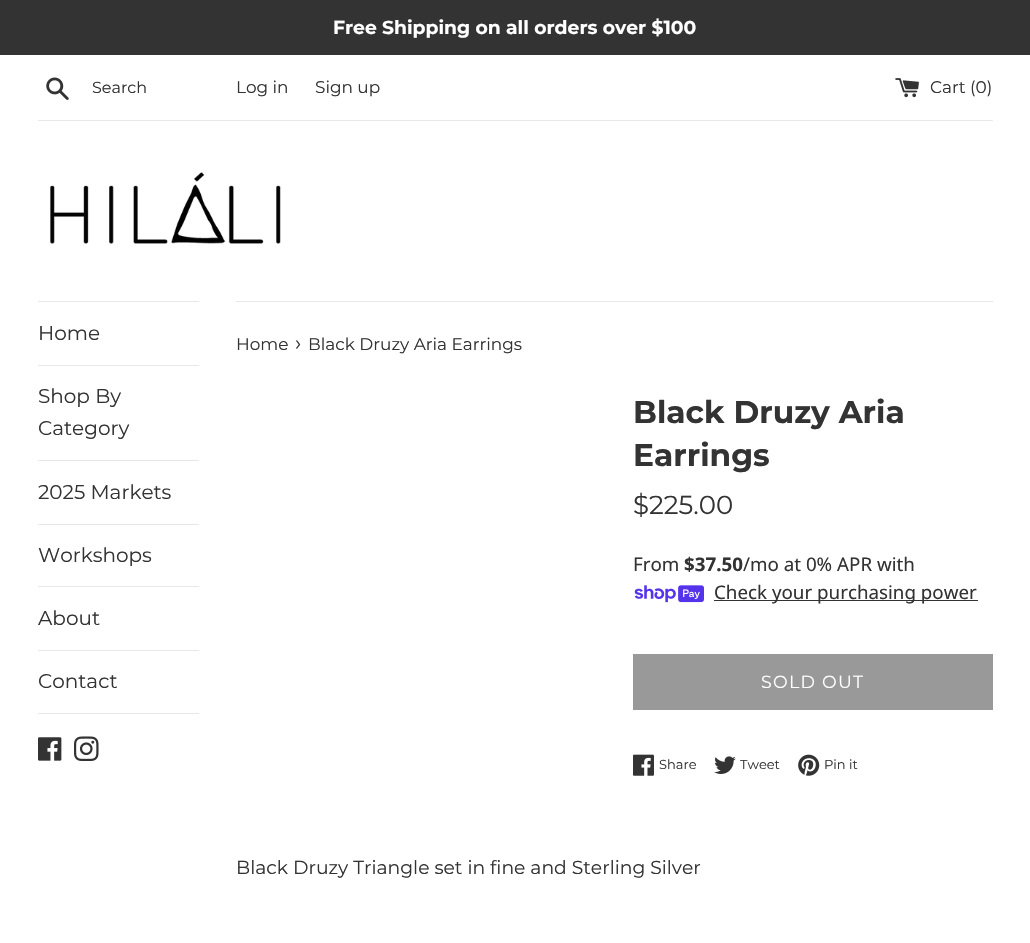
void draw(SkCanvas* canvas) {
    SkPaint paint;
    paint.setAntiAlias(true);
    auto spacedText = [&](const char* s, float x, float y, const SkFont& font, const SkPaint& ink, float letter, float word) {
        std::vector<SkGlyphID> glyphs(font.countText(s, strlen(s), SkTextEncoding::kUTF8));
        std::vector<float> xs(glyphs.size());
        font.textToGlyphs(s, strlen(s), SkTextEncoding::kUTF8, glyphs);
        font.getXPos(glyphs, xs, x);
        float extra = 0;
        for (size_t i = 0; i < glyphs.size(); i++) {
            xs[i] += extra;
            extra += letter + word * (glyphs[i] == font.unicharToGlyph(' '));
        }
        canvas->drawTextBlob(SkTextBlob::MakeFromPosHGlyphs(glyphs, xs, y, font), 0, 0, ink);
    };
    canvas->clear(0xFFFFFFFF);
    paint.setColor(0xFF333333);
    canvas->drawRect(SkRect::MakeXYWH(0, 0, 1030, 55), paint);
    SkFont font1(fontMgr->matchFamilyStyle("Montserrat", SkFontStyle::Bold()), 18.75f);
    font1.setSubpixel(true);
    paint.setColor(0xFFFFFFFF);
    canvas->drawString("Free Shipping on all orders over $100", 333, 34, font1, paint);
    canvas->drawImageRect(SkImages::DeferredFromEncodedData(SkData::MakeFromFileName("img1.png")), SkRect::MakeXYWH(46, 77, 23, 23), SkSamplingOptions());
    SkFont font2(fontMgr->matchFamilyStyle("Montserrat", SkFontStyle::Normal()), 16);
    font2.setSubpixel(true);
    paint.setColor(0xFF333333);
    canvas->drawString("Search", 92, 93, font2, paint);
    SkFont font3(fontMgr->matchFamilyStyle("Montserrat", SkFontStyle::Normal()), 16.9f);
    font3.setSubpixel(true);
    canvas->drawString("Log in", 236, 93, font3, paint);
    canvas->drawString("Sign up", 315, 93, font3, paint);
    canvas->drawImageRect(SkImages::DeferredFromEncodedData(SkData::MakeFromFileName("img2.png")), SkRect::MakeXYWH(895, 78, 24, 20), SkSamplingOptions());
    canvas->drawString("Cart (0)", 930, 93, font3, paint);
    paint.setColor(0xFFE8E8E8);
    canvas->drawRect(SkRect::MakeXYWH(38, 120, 955, 1), paint);
    canvas->drawImageRect(SkImages::DeferredFromEncodedData(SkData::MakeFromFileName("img3.png")), SkRect::MakeXYWH(50, 172, 231, 72), SkSamplingOptions());
    canvas->drawRect(SkRect::MakeXYWH(38, 301, 161, 1), paint);
    canvas->drawRect(SkRect::MakeXYWH(38, 365, 161, 1), paint);
    SkFont font4(fontMgr->matchFamilyStyle("Montserrat", SkFontStyle::Normal()), 20);
    font4.setSubpixel(true);
    paint.setColor(0xFF333333);
    canvas->drawString("Home", 38, 340, font4, paint);
    paint.setColor(0xFFE8E8E8);
    canvas->drawRect(SkRect::MakeXYWH(38, 460, 161, 1), paint);
    paint.setColor(0xFF333333);
    canvas->drawString("Shop By", 38, 403, font4, paint);
    canvas->drawString("Category", 38, 435, font4, paint);
    paint.setColor(0xFFE8E8E8);
    canvas->drawRect(SkRect::MakeXYWH(38, 524, 161, 1), paint);
    paint.setColor(0xFF333333);
    canvas->drawString("2025 Markets", 38, 499, font4, paint);
    paint.setColor(0xFFE8E8E8);
    canvas->drawRect(SkRect::MakeXYWH(38, 586, 161, 1), paint);
    paint.setColor(0xFF333333);
    canvas->drawString("Workshops", 38, 562, font4, paint);
    paint.setColor(0xFFE8E8E8);
    canvas->drawRect(SkRect::MakeXYWH(38, 650, 161, 1), paint);
    paint.setColor(0xFF333333);
    canvas->drawString("About", 38, 625, font4, paint);
    paint.setColor(0xFFE8E8E8);
    canvas->drawRect(SkRect::MakeXYWH(38, 713, 161, 1), paint);
    paint.setColor(0xFF333333);
    canvas->drawString("Contact", 38, 688, font4, paint);
    canvas->drawImageRect(SkImages::DeferredFromEncodedData(SkData::MakeFromFileName("img4.png")), SkRect::MakeXYWH(38, 737, 24, 24), SkSamplingOptions());
    canvas->drawImageRect(SkImages::DeferredFromEncodedData(SkData::MakeFromFileName("img5.png")), SkRect::MakeXYWH(74, 736, 25, 25), SkSamplingOptions());
    paint.setColor(0xFFE8E8E8);
    canvas->drawRect(SkRect::MakeXYWH(236, 301, 757, 1), paint);
    paint.setColor(0xFF333333);
    canvas->drawString("Home", 236, 350, font3, paint);
    SkFont font5(fontMgr->matchFamilyStyle("Montserrat", SkFontStyle::Normal()), 21);
    font5.setSubpixel(true);
    canvas->drawString("›", 295, 350, font5, paint);
    canvas->drawString("Black Druzy Aria Earrings", 308, 350, font3, paint);
    SkFont font6(fontMgr->matchFamilyStyle("Montserrat", SkFontStyle::Bold()), 31.25f);
    font6.setSubpixel(true);
    canvas->drawString("Black Druzy Aria", 633, 423, font6, paint);
    canvas->drawString("Earrings", 633, 466, font6, paint);
    SkFont font7(fontMgr->matchFamilyStyle("Montserrat", SkFontStyle::Normal()), 26);
    font7.setSubpixel(true);
    canvas->drawString("$225.00", 633, 514, font7, paint);
    SkFont font8(fontMgr->matchFamilyStyle("Noto Sans", SkFontStyle::Normal()), 18.75f);
    font8.setSubpixel(true);
    canvas->drawString("From", 633, 571, font8, paint);
    SkFont font9(fontMgr->matchFamilyStyle("Noto Sans", SkFontStyle::Bold()), 18.75f);
    font9.setSubpixel(true);
    canvas->drawString("$37.50", 684, 571, font9, paint);
    canvas->drawString("/mo at 0% APR with", 743, 571, font8, paint);
    canvas->drawImageRect(SkImages::DeferredFromEncodedData(SkData::MakeFromFileName("img6.png")), SkRect::MakeXYWH(634, 585, 70, 18), SkSamplingOptions());
    canvas->drawRect(SkRect::MakeXYWH(714, 600, 264, 1), paint);
    canvas->drawString("Check your purchasing power", 714, 599, font8, paint);
    paint.setColor(0xFF999999);
    canvas->drawRect(SkRect::MakeXYWH(633, 654, 360, 56), paint);
    SkFont font10(fontMgr->matchFamilyStyle("Montserrat", SkFontStyle::Normal()), 17.5f);
    font10.setSubpixel(true);
    paint.setColor(0xFFFFFFFF);
    spacedText("SOLD OUT", 761, 688, font10, paint, 1.25f, 0);
    canvas->drawImageRect(SkImages::DeferredFromEncodedData(SkData::MakeFromFileName("img7.png")), SkRect::MakeXYWH(633, 754, 21, 22), SkSamplingOptions());
    SkFont font11(fontMgr->matchFamilyStyle("Montserrat", SkFontStyle::Normal()), 13);
    font11.setSubpixel(true);
    paint.setColor(0xFF333333);
    canvas->drawString("Share", 659, 769, font11, paint);
    canvas->drawImageRect(SkImages::DeferredFromEncodedData(SkData::MakeFromFileName("img8.png")), SkRect::MakeXYWH(714, 756, 22, 18), SkSamplingOptions());
    canvas->drawString("Tweet", 740, 769, font11, paint);
    canvas->drawImageRect(SkImages::DeferredFromEncodedData(SkData::MakeFromFileName("img9.png")), SkRect::MakeXYWH(798, 754, 22, 22), SkSamplingOptions());
    canvas->drawString("Pin it", 824, 769, font11, paint);
    SkFont font12(fontMgr->matchFamilyStyle("Montserrat", SkFontStyle::Normal()), 18.75f);
    font12.setSubpixel(true);
    canvas->drawString("Black Druzy Triangle set in fine and Sterling Silver", 236, 874, font12, paint);
}
